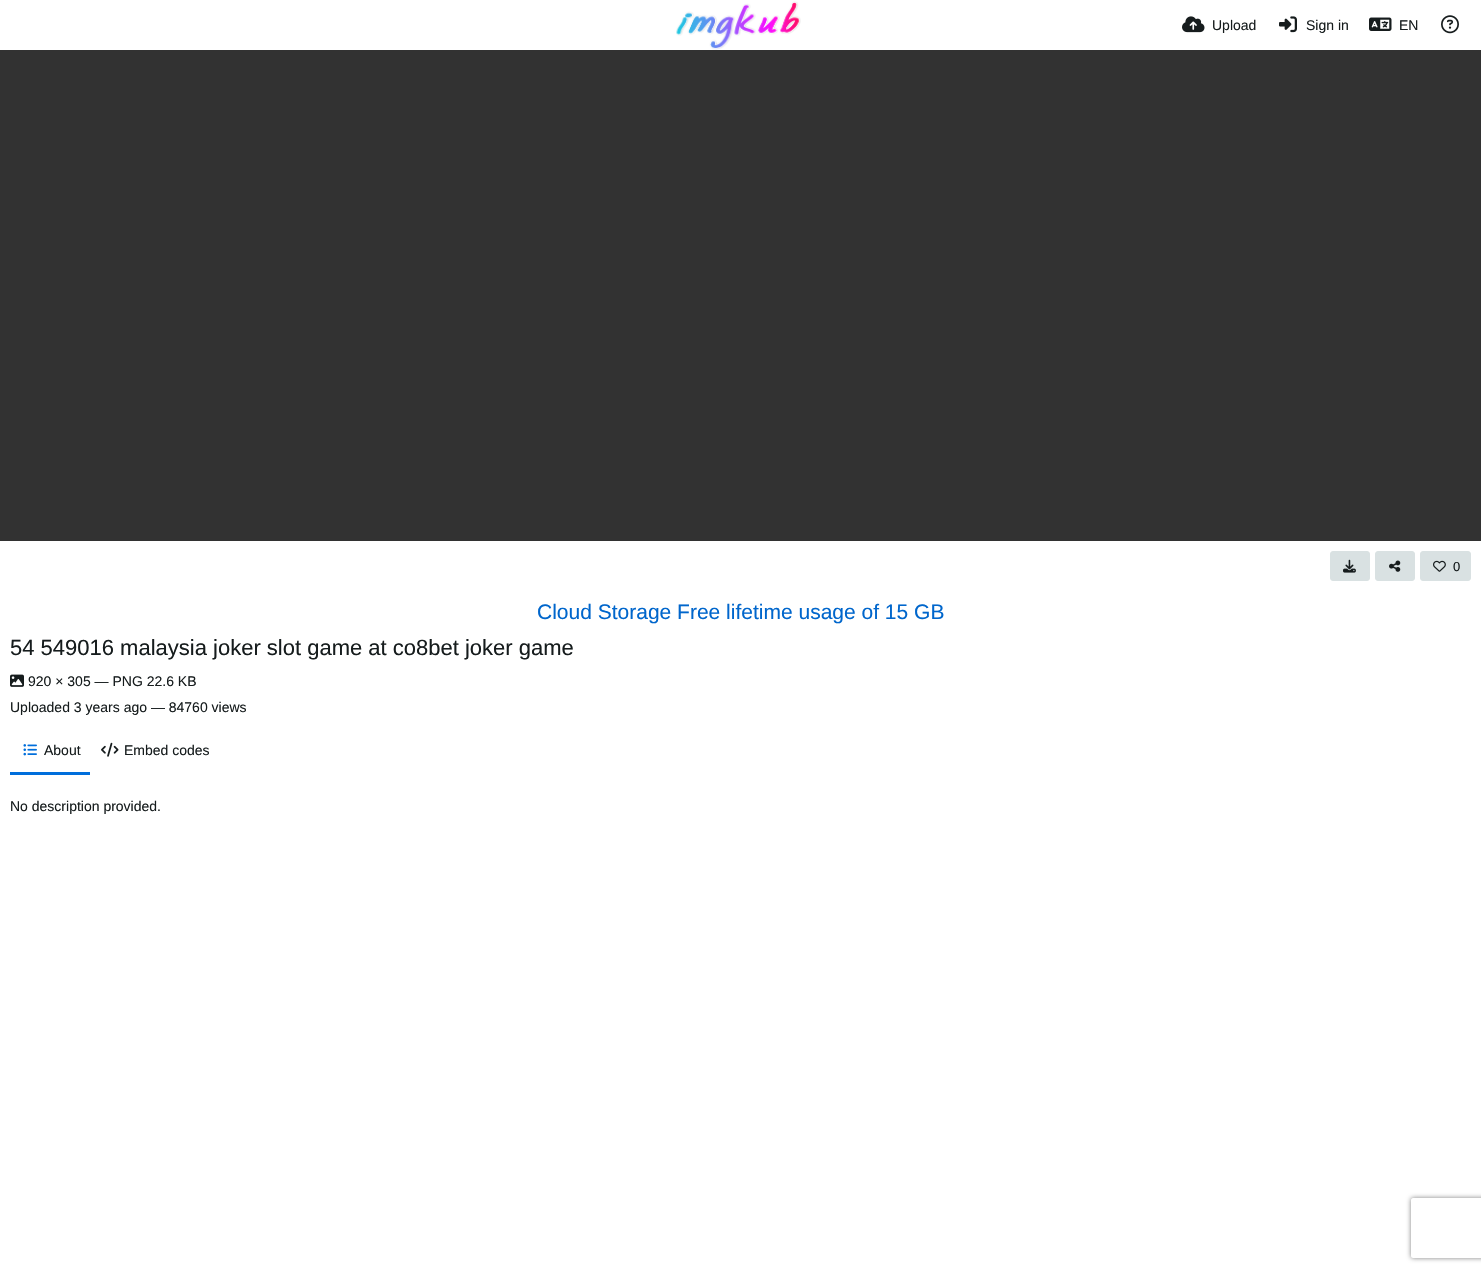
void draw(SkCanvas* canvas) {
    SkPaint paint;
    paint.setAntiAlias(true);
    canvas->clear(0xFFFFFFFF);
    canvas->drawImageRect(SkImages::DeferredFromEncodedData(SkData::MakeFromFileName("img1.png")), SkRect::MakeXYWH(676, 1, 125, 49), SkSamplingOptions());
    canvas->drawImageRect(SkImages::DeferredFromEncodedData(SkData::MakeFromFileName("img2.png")), SkRect::MakeXYWH(1182, 16, 23, 17), SkSamplingOptions());
    SkFont font1(fontMgr->matchFamilyStyle("Liberation Sans", SkFontStyle::Normal()), 14);
    font1.setSubpixel(true);
    paint.setColor(0xFF161C1D);
    canvas->drawString("Upload", 1212, 30, font1, paint);
    canvas->drawImageRect(SkImages::DeferredFromEncodedData(SkData::MakeFromFileName("img3.png")), SkRect::MakeXYWH(1279, 16, 18, 17), SkSamplingOptions());
    canvas->drawString("Sign in", 1306, 30, font1, paint);
    canvas->drawImageRect(SkImages::DeferredFromEncodedData(SkData::MakeFromFileName("img4.png")), SkRect::MakeXYWH(1369, 17, 23, 14), SkSamplingOptions());
    canvas->drawString("EN", 1399, 30, font1, paint);
    canvas->drawImageRect(SkImages::DeferredFromEncodedData(SkData::MakeFromFileName("img5.png")), SkRect::MakeXYWH(1441, 15, 18, 19), SkSamplingOptions());
    paint.setColor(0xFF323232);
    canvas->drawRect(SkRect::MakeXYWH(0, 50, 1481, 491), paint);
    paint.setColor(0xFFD9E1E2);
    canvas->drawRoundRect(SkRect::MakeXYWH(1330.5f, 551.5f, 39, 29), 2.5f, 2.5f, paint);
    paint.setStyle(SkPaint::kStroke_Style);
    paint.setStrokeWidth(1);
    canvas->drawRoundRect(SkRect::MakeXYWH(1330.5f, 551.5f, 39, 29), 2.5f, 2.5f, paint);
    canvas->drawImageRect(SkImages::DeferredFromEncodedData(SkData::MakeFromFileName("img6.png")), SkRect::MakeXYWH(1343, 559, 13, 14), SkSamplingOptions());
    paint.setStyle(SkPaint::kFill_Style);
    canvas->drawRoundRect(SkRect::MakeXYWH(1375.5f, 551.5f, 39, 29), 2.5f, 2.5f, paint);
    paint.setStyle(SkPaint::kStroke_Style);
    canvas->drawRoundRect(SkRect::MakeXYWH(1375.5f, 551.5f, 39, 29), 2.5f, 2.5f, paint);
    canvas->drawImageRect(SkImages::DeferredFromEncodedData(SkData::MakeFromFileName("img7.png")), SkRect::MakeXYWH(1389, 560, 12, 12), SkSamplingOptions());
    paint.setStyle(SkPaint::kFill_Style);
    canvas->drawRoundRect(SkRect::MakeXYWH(1420.5f, 551.5f, 50, 29), 2.5f, 2.5f, paint);
    paint.setStyle(SkPaint::kStroke_Style);
    canvas->drawRoundRect(SkRect::MakeXYWH(1420.5f, 551.5f, 50, 29), 2.5f, 2.5f, paint);
    canvas->drawImageRect(SkImages::DeferredFromEncodedData(SkData::MakeFromFileName("img8.png")), SkRect::MakeXYWH(1433, 560, 13, 12), SkSamplingOptions());
    SkFont font2(fontMgr->matchFamilyStyle("Liberation Sans", SkFontStyle::Normal()), 13);
    font2.setSubpixel(true);
    paint.setStyle(SkPaint::kFill_Style);
    paint.setColor(0xFF161C1D);
    canvas->drawString("0", 1453, 571, font2, paint);
    SkFont font3(fontMgr->matchFamilyStyle("Liberation Sans", SkFontStyle::Normal()), 21);
    font3.setSubpixel(true);
    paint.setColor(0xFF0066CC);
    canvas->drawString("Cloud Storage Free lifetime usage of 15 GB", 537, 619, font3, paint);
    SkFont font4(fontMgr->matchFamilyStyle("Liberation Sans", SkFontStyle::Normal()), 22);
    font4.setSubpixel(true);
    paint.setColor(0xFF161C1D);
    canvas->drawString("54 549016 malaysia joker slot game at co8bet joker game", 10, 655, font4, paint);
    canvas->drawImageRect(SkImages::DeferredFromEncodedData(SkData::MakeFromFileName("img9.png")), SkRect::MakeXYWH(10, 674, 14, 13), SkSamplingOptions());
    canvas->drawString("920 × 305 — PNG 22.6 KB", 28, 686, font1, paint);
    canvas->drawString("Uploaded 3 years ago — 84760 views", 10, 712, font1, paint);
    paint.setColor(0xFF006EDB);
    canvas->drawRect(SkRect::MakeXYWH(10, 772, 80, 3), paint);
    canvas->drawImageRect(SkImages::DeferredFromEncodedData(SkData::MakeFromFileName("img10.png")), SkRect::MakeXYWH(23, 744, 14, 12), SkSamplingOptions());
    paint.setColor(0xFF161C1D);
    canvas->drawString("About", 44, 755, font1, paint);
    canvas->drawImageRect(SkImages::DeferredFromEncodedData(SkData::MakeFromFileName("img11.png")), SkRect::MakeXYWH(101, 742, 18, 15), SkSamplingOptions());
    canvas->drawString("Embed codes", 124, 755, font1, paint);
    canvas->drawString("No description provided.", 10, 811, font1, paint);
    canvas->save();
    canvas->clipPath(SkPathBuilder(SkPathFillType::kEvenOdd).moveTo(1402, 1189).lineTo(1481, 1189).lineTo(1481, 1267).lineTo(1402, 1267).close().moveTo(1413, 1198).lineTo(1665, 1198).cubicTo(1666, 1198, 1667, 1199, 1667, 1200).lineTo(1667, 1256).cubicTo(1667, 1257, 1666, 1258, 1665, 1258).lineTo(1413, 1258).cubicTo(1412, 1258, 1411, 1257, 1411, 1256).lineTo(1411, 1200).cubicTo(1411, 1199, 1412, 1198, 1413, 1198).close().detach(), true);
    paint.setColor(0xFF808080);
    paint.setMaskFilter(SkMaskFilter::MakeBlur(kNormal_SkBlurStyle, 2.5f));
    canvas->drawRoundRect(SkRect::MakeXYWH(1411, 1198, 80, 60), 2, 2, paint);
    paint.setMaskFilter(nullptr);
    canvas->restore();
}
